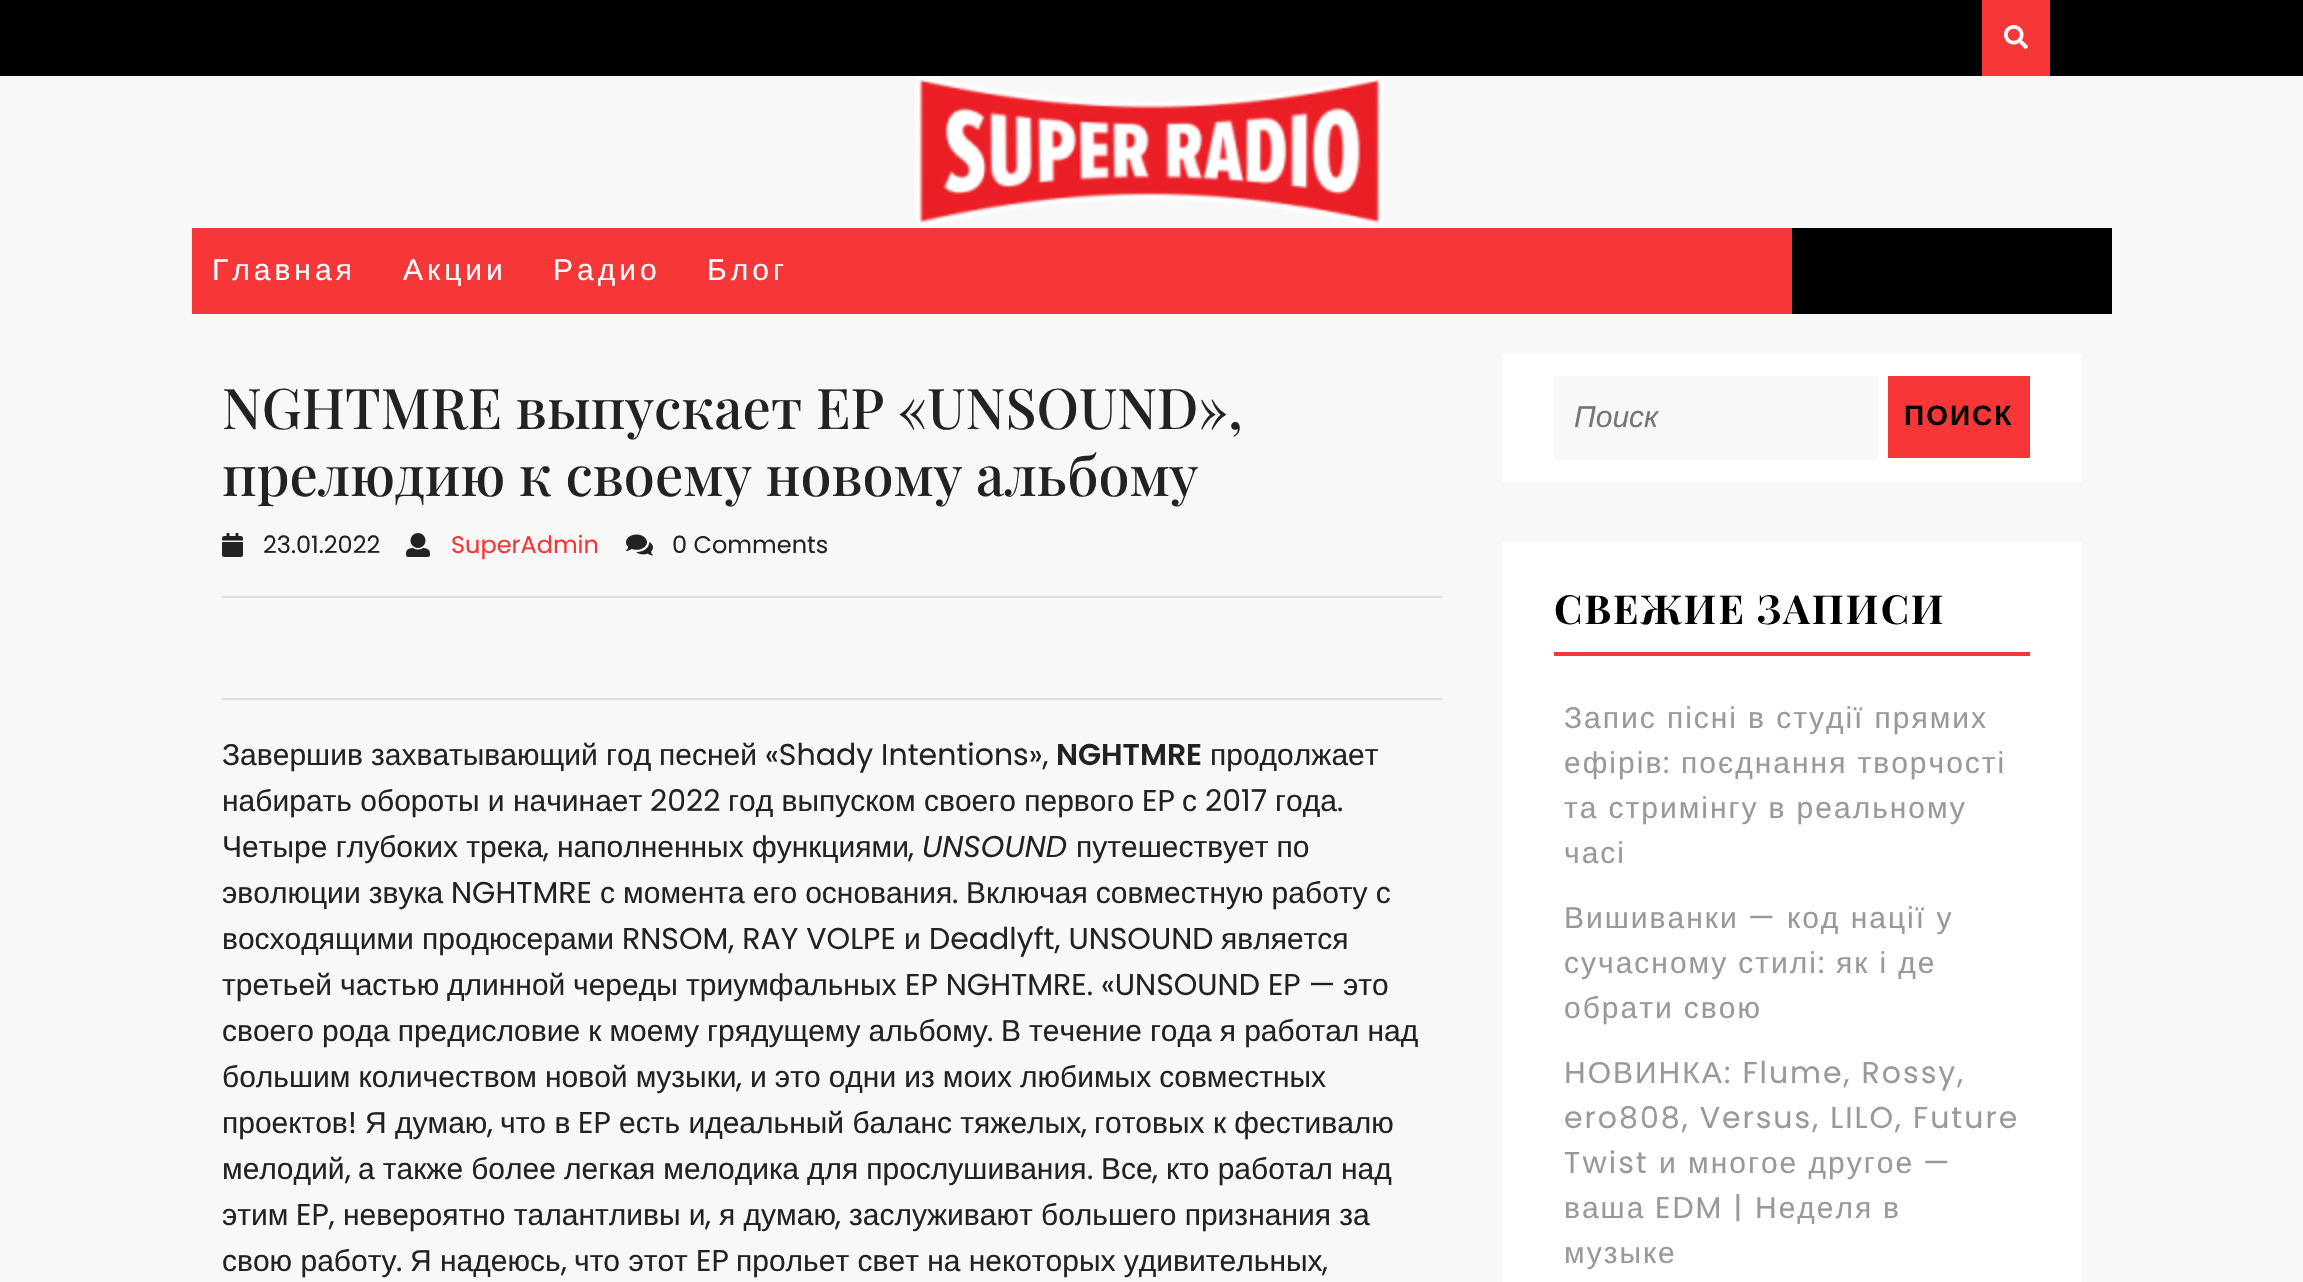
void draw(SkCanvas* canvas) {
    SkPaint paint;
    paint.setAntiAlias(true);
    auto spacedText = [&](const char* s, float x, float y, const SkFont& font, const SkPaint& ink, float letter, float word) {
        std::vector<SkGlyphID> glyphs(font.countText(s, strlen(s), SkTextEncoding::kUTF8));
        std::vector<float> xs(glyphs.size());
        font.textToGlyphs(s, strlen(s), SkTextEncoding::kUTF8, glyphs);
        font.getXPos(glyphs, xs, x);
        float extra = 0;
        for (size_t i = 0; i < glyphs.size(); i++) {
            xs[i] += extra;
            extra += letter + word * (glyphs[i] == font.unicharToGlyph(' '));
        }
        canvas->drawTextBlob(SkTextBlob::MakeFromPosHGlyphs(glyphs, xs, y, font), 0, 0, ink);
    };
    canvas->clear(0xFFF8F8F8);
    paint.setColor(0xFF000000);
    canvas->drawRect(SkRect::MakeXYWH(0, 0, 2303, 76), paint);
    paint.setColor(0xFFF73637);
    canvas->drawRect(SkRect::MakeXYWH(1982, 0, 68, 76), paint);
    canvas->drawImageRect(SkImages::DeferredFromEncodedData(SkData::MakeFromFileName("img1.png")), SkRect::MakeXYWH(2004, 25, 24, 24), SkSamplingOptions());
    canvas->drawImageRect(SkImages::DeferredFromEncodedData(SkData::MakeFromFileName("img2.png")), SkRect::MakeXYWH(915, 76, 469, 151), SkSamplingOptions());
    canvas->drawRect(SkRect::MakeXYWH(192, 228, 1600, 86), paint);
    SkFont font1(fontMgr->matchFamilyStyle("Liberation Sans", SkFontStyle::Normal()), 30);
    font1.setSubpixel(true);
    paint.setColor(0xFFFFFFFF);
    spacedText("Главная", 212, 280, font1, paint, 4, 0);
    spacedText("Акции", 403, 280, font1, paint, 4, 0);
    spacedText("Радио", 553, 280, font1, paint, 4, 0);
    spacedText("Блог", 707, 280, font1, paint, 4, 0);
    paint.setColor(0xFF000000);
    canvas->drawRect(SkRect::MakeXYWH(1792, 228, 320, 86), paint);
    SkFont font2(fontMgr->matchFamilyStyle("Playfair Display", SkFontStyle(500, SkFontStyle::kNormal_Width, SkFontStyle::kUpright_Slant)), 56);
    font2.setSubpixel(true);
    paint.setColor(0xFF222222);
    canvas->drawString("NGHTMRE выпускает EP «UNSOUND»,", 222, 429, font2, paint);
    canvas->drawString("прелюдию к своему новому альбому", 222, 496, font2, paint);
    canvas->drawImageRect(SkImages::DeferredFromEncodedData(SkData::MakeFromFileName("img3.png")), SkRect::MakeXYWH(222, 533, 21, 24), SkSamplingOptions());
    SkFont font3(fontMgr->matchFamilyStyle("Poppins", SkFontStyle::Normal()), 24);
    font3.setSubpixel(true);
    canvas->drawString("23.01.2022", 263, 553, font3, paint);
    canvas->drawImageRect(SkImages::DeferredFromEncodedData(SkData::MakeFromFileName("img4.png")), SkRect::MakeXYWH(406, 533, 24, 24), SkSamplingOptions());
    paint.setColor(0xFFF73637);
    canvas->drawString("SuperAdmin", 451, 553, font3, paint);
    canvas->drawImageRect(SkImages::DeferredFromEncodedData(SkData::MakeFromFileName("img5.png")), SkRect::MakeXYWH(626, 534, 27, 22), SkSamplingOptions());
    paint.setColor(0xFF222222);
    canvas->drawString("0 Comments", 672, 553, font3, paint);
    paint.setColor(0xFFDFDFDF);
    canvas->drawRect(SkRect::MakeXYWH(222, 596, 1220, 2), paint);
    canvas->drawRect(SkRect::MakeXYWH(222, 698, 1220, 2), paint);
    paint.setColor(0xFF222222);
    canvas->drawString("Завершив", 222, 765, font1, paint);
    canvas->drawString("захватывающий", 371, 765, font1, paint);
    canvas->drawString("год", 606, 765, font1, paint);
    canvas->drawString("песней", 659, 765, font1, paint);
    SkFont font4(fontMgr->matchFamilyStyle("Poppins", SkFontStyle::Normal()), 30);
    font4.setSubpixel(true);
    canvas->drawString("«Shady Intentions»,", 765, 765, font4, paint);
    SkFont font5(fontMgr->matchFamilyStyle("Poppins", SkFontStyle(600, SkFontStyle::kNormal_Width, SkFontStyle::kUpright_Slant)), 30);
    font5.setSubpixel(true);
    canvas->drawString("NGHTMRE", 1056, 765, font5, paint);
    canvas->drawString("продолжает", 1210, 765, font1, paint);
    canvas->drawString("набирать обороты и начинает", 222, 811, font1, paint);
    canvas->drawString("2022", 650, 811, font4, paint);
    canvas->drawString("год выпуском своего первого", 728, 811, font1, paint);
    canvas->drawString("EP", 1142, 811, font4, paint);
    canvas->drawString("с", 1182, 811, font1, paint);
    canvas->drawString("2017", 1205, 811, font4, paint);
    canvas->drawString("года", 1275, 811, font1, paint);
    canvas->drawString(".", 1337, 811, font4, paint);
    canvas->drawString("Четыре глубоких трека", 222, 857, font1, paint);
    canvas->drawString(",", 543, 857, font4, paint);
    canvas->drawString("наполненных функциями", 557, 857, font1, paint);
    canvas->drawString(",", 908, 857, font4, paint);
    SkFont font6(fontMgr->matchFamilyStyle("Poppins", SkFontStyle::Italic()), 30);
    font6.setSubpixel(true);
    canvas->drawString("UNSOUND", 922, 857, font6, paint);
    spacedText("путешествует по", 1076, 857, font1, paint, 0, -0.25f);
    spacedText("эволюции звука", 222, 903, font1, paint, 0, -0.25f);
    canvas->drawString("NGHTMRE", 451, 903, font4, paint);
    spacedText("с момента его основания", 600, 903, font1, paint, 0, -0.25f);
    canvas->drawString(".", 952, 903, font4, paint);
    spacedText("Включая совместную работу с", 966, 903, font1, paint, 0, -0.25f);
    canvas->drawString("восходящими", 222, 949, font1, paint);
    canvas->drawString("продюсерами", 422, 949, font1, paint);
    canvas->drawString("RNSOM, RAY VOLPE", 622, 949, font4, paint);
    canvas->drawString("и", 904, 949, font1, paint);
    canvas->drawString("Deadlyft, UNSOUND", 929, 949, font4, paint);
    canvas->drawString("является", 1221, 949, font1, paint);
    canvas->drawString("третьей", 222, 995, font1, paint);
    canvas->drawString("частью", 340, 995, font1, paint);
    canvas->drawString("длинной", 447, 995, font1, paint);
    canvas->drawString("череды", 573, 995, font1, paint);
    canvas->drawString("триумфальных", 686, 995, font1, paint);
    canvas->drawString("EP NGHTMRE. «UNSOUND EP —", 905, 995, font4, paint);
    canvas->drawString("это", 1343, 995, font1, paint);
    spacedText("своего рода предисловие к моему грядущему альбому", 222, 1041, font1, paint, 0, -0.25f);
    canvas->drawString(".", 987, 1041, font4, paint);
    spacedText("В течение года я работал над", 1001, 1041, font1, paint, 0, -0.25f);
    spacedText("большим количеством новой музыки", 222, 1087, font1, paint, 0, -0.25f);
    canvas->drawString(",", 736, 1087, font4, paint);
    spacedText("и это одни из моих любимых совместных", 750, 1087, font1, paint, 0, -0.25f);
    canvas->drawString("проектов", 222, 1133, font1, paint);
    canvas->drawString("!", 348, 1133, font4, paint);
    canvas->drawString("Я думаю", 365, 1133, font1, paint);
    canvas->drawString(",", 487, 1133, font4, paint);
    canvas->drawString("что в", 500, 1133, font1, paint);
    canvas->drawString("EP", 578, 1133, font4, paint);
    canvas->drawString("есть идеальный баланс тяжелых", 619, 1133, font1, paint);
    canvas->drawString(",", 1081, 1133, font4, paint);
    canvas->drawString("готовых к фестивалю", 1094, 1133, font1, paint);
    canvas->drawString("мелодий", 222, 1179, font1, paint);
    canvas->drawString(",", 345, 1179, font4, paint);
    spacedText("а также более легкая мелодика для прослушивания", 358, 1179, font1, paint, 0, -0.25f);
    canvas->drawString(".", 1087, 1179, font4, paint);
    canvas->drawString("Все", 1101, 1179, font1, paint);
    canvas->drawString(",", 1152, 1179, font4, paint);
    spacedText("кто работал над", 1166, 1179, font1, paint, 0, -0.25f);
    canvas->drawString("этим", 222, 1225, font1, paint);
    canvas->drawString("EP,", 296, 1225, font4, paint);
    canvas->drawString("невероятно талантливы и", 343, 1225, font1, paint);
    canvas->drawString(",", 705, 1225, font4, paint);
    canvas->drawString("я думаю", 719, 1225, font1, paint);
    canvas->drawString(",", 835, 1225, font4, paint);
    canvas->drawString("заслуживают большего признания за", 849, 1225, font1, paint);
    canvas->drawString("свою работу", 222, 1271, font1, paint);
    canvas->drawString(".", 396, 1271, font4, paint);
    canvas->drawString("Я надеюсь", 410, 1271, font1, paint);
    canvas->drawString(",", 561, 1271, font4, paint);
    canvas->drawString("что этот", 574, 1271, font1, paint);
    canvas->drawString("EP", 696, 1271, font4, paint);
    canvas->drawString("прольет свет на некоторых удивительных", 736, 1271, font1, paint);
    canvas->drawString(",", 1322, 1271, font4, paint);
    paint.setColor(0xFFFFFFFF);
    canvas->drawRect(SkRect::MakeXYWH(1502, 354, 580, 128), paint);
    paint.setColor(0xFFF8F8F8);
    canvas->drawRect(SkRect::MakeXYWH(1554, 376, 324, 84), paint);
    SkFont font7(fontMgr->matchFamilyStyle("Liberation Sans", SkFontStyle::Italic()), 30);
    font7.setSubpixel(true);
    paint.setColor(0xFF757575);
    canvas->drawString("Поиск", 1574, 427, font7, paint);
    paint.setColor(0xFFF73637);
    canvas->drawRect(SkRect::MakeXYWH(1888, 376, 142, 82), paint);
    SkFont font8(fontMgr->matchFamilyStyle("Liberation Sans", SkFontStyle::Bold()), 28);
    font8.setSubpixel(true);
    paint.setColor(0xFF000000);
    spacedText("ПОИСК", 1904, 425, font8, paint, 2, 0);
    paint.setColor(0xFFFFFFFF);
    canvas->drawRect(SkRect::MakeXYWH(1502, 542, 580, 740), paint);
    paint.setColor(0xFFF73637);
    canvas->drawRect(SkRect::MakeXYWH(1554, 652, 476, 4), paint);
    SkFont font9(fontMgr->matchFamilyStyle("Playfair Display", SkFontStyle::Bold()), 40);
    font9.setSubpixel(true);
    paint.setColor(0xFF000000);
    spacedText("СВЕЖИЕ ЗАПИСИ", 1554, 624, font9, paint, 2, 0);
    paint.setColor(0xFF999999);
    spacedText("Запис пісні в студії прямих", 1564, 728, font1, paint, 2, -0.25f);
    spacedText("ефірів", 1564, 773, font1, paint, 2, 0);
    spacedText(":", 1663, 773, font4, paint, 2, 0);
    spacedText("поєднання творчості", 1681, 773, font1, paint, 2, -0.25f);
    spacedText("та стримінгу в реальному", 1564, 818, font1, paint, 2, -0.25f);
    spacedText("часі", 1564, 863, font1, paint, 2, 0);
    spacedText("Вишиванки", 1564, 928, font1, paint, 2, 0);
    spacedText("—", 1748, 928, font4, paint, 2, 0);
    spacedText("код нації у", 1787, 928, font1, paint, 2, 0);
    spacedText("сучасному стилі", 1564, 973, font1, paint, 2, -0.25f);
    spacedText(":", 1818, 973, font4, paint, 2, 0);
    spacedText("як і де", 1836, 973, font1, paint, 2, -0.25f);
    spacedText("обрати свою", 1564, 1018, font1, paint, 2, -0.25f);
    spacedText("НОВИНКА", 1564, 1083, font1, paint, 2, 0);
    spacedText(": Flume, Rossy,", 1724, 1083, font4, paint, 2, 0);
    spacedText("ero808, Versus, LILO, Future", 1564, 1128, font4, paint, 2, 0);
    spacedText("Twist", 1564, 1173, font4, paint, 2, 0);
    spacedText("и многое другое", 1659, 1173, font1, paint, 2, 0);
    spacedText("—", 1923, 1173, font4, paint, 2, 0);
    spacedText("ваша", 1564, 1218, font1, paint, 2, 0);
    spacedText("EDM |", 1655, 1218, font4, paint, 2, 0);
    spacedText("Неделя", 1755, 1218, font1, paint, 2, 0);
    spacedText("в", 1883, 1218, font1, paint, 2, 0);
    spacedText("музыке", 1564, 1263, font1, paint, 2, 0);
}
